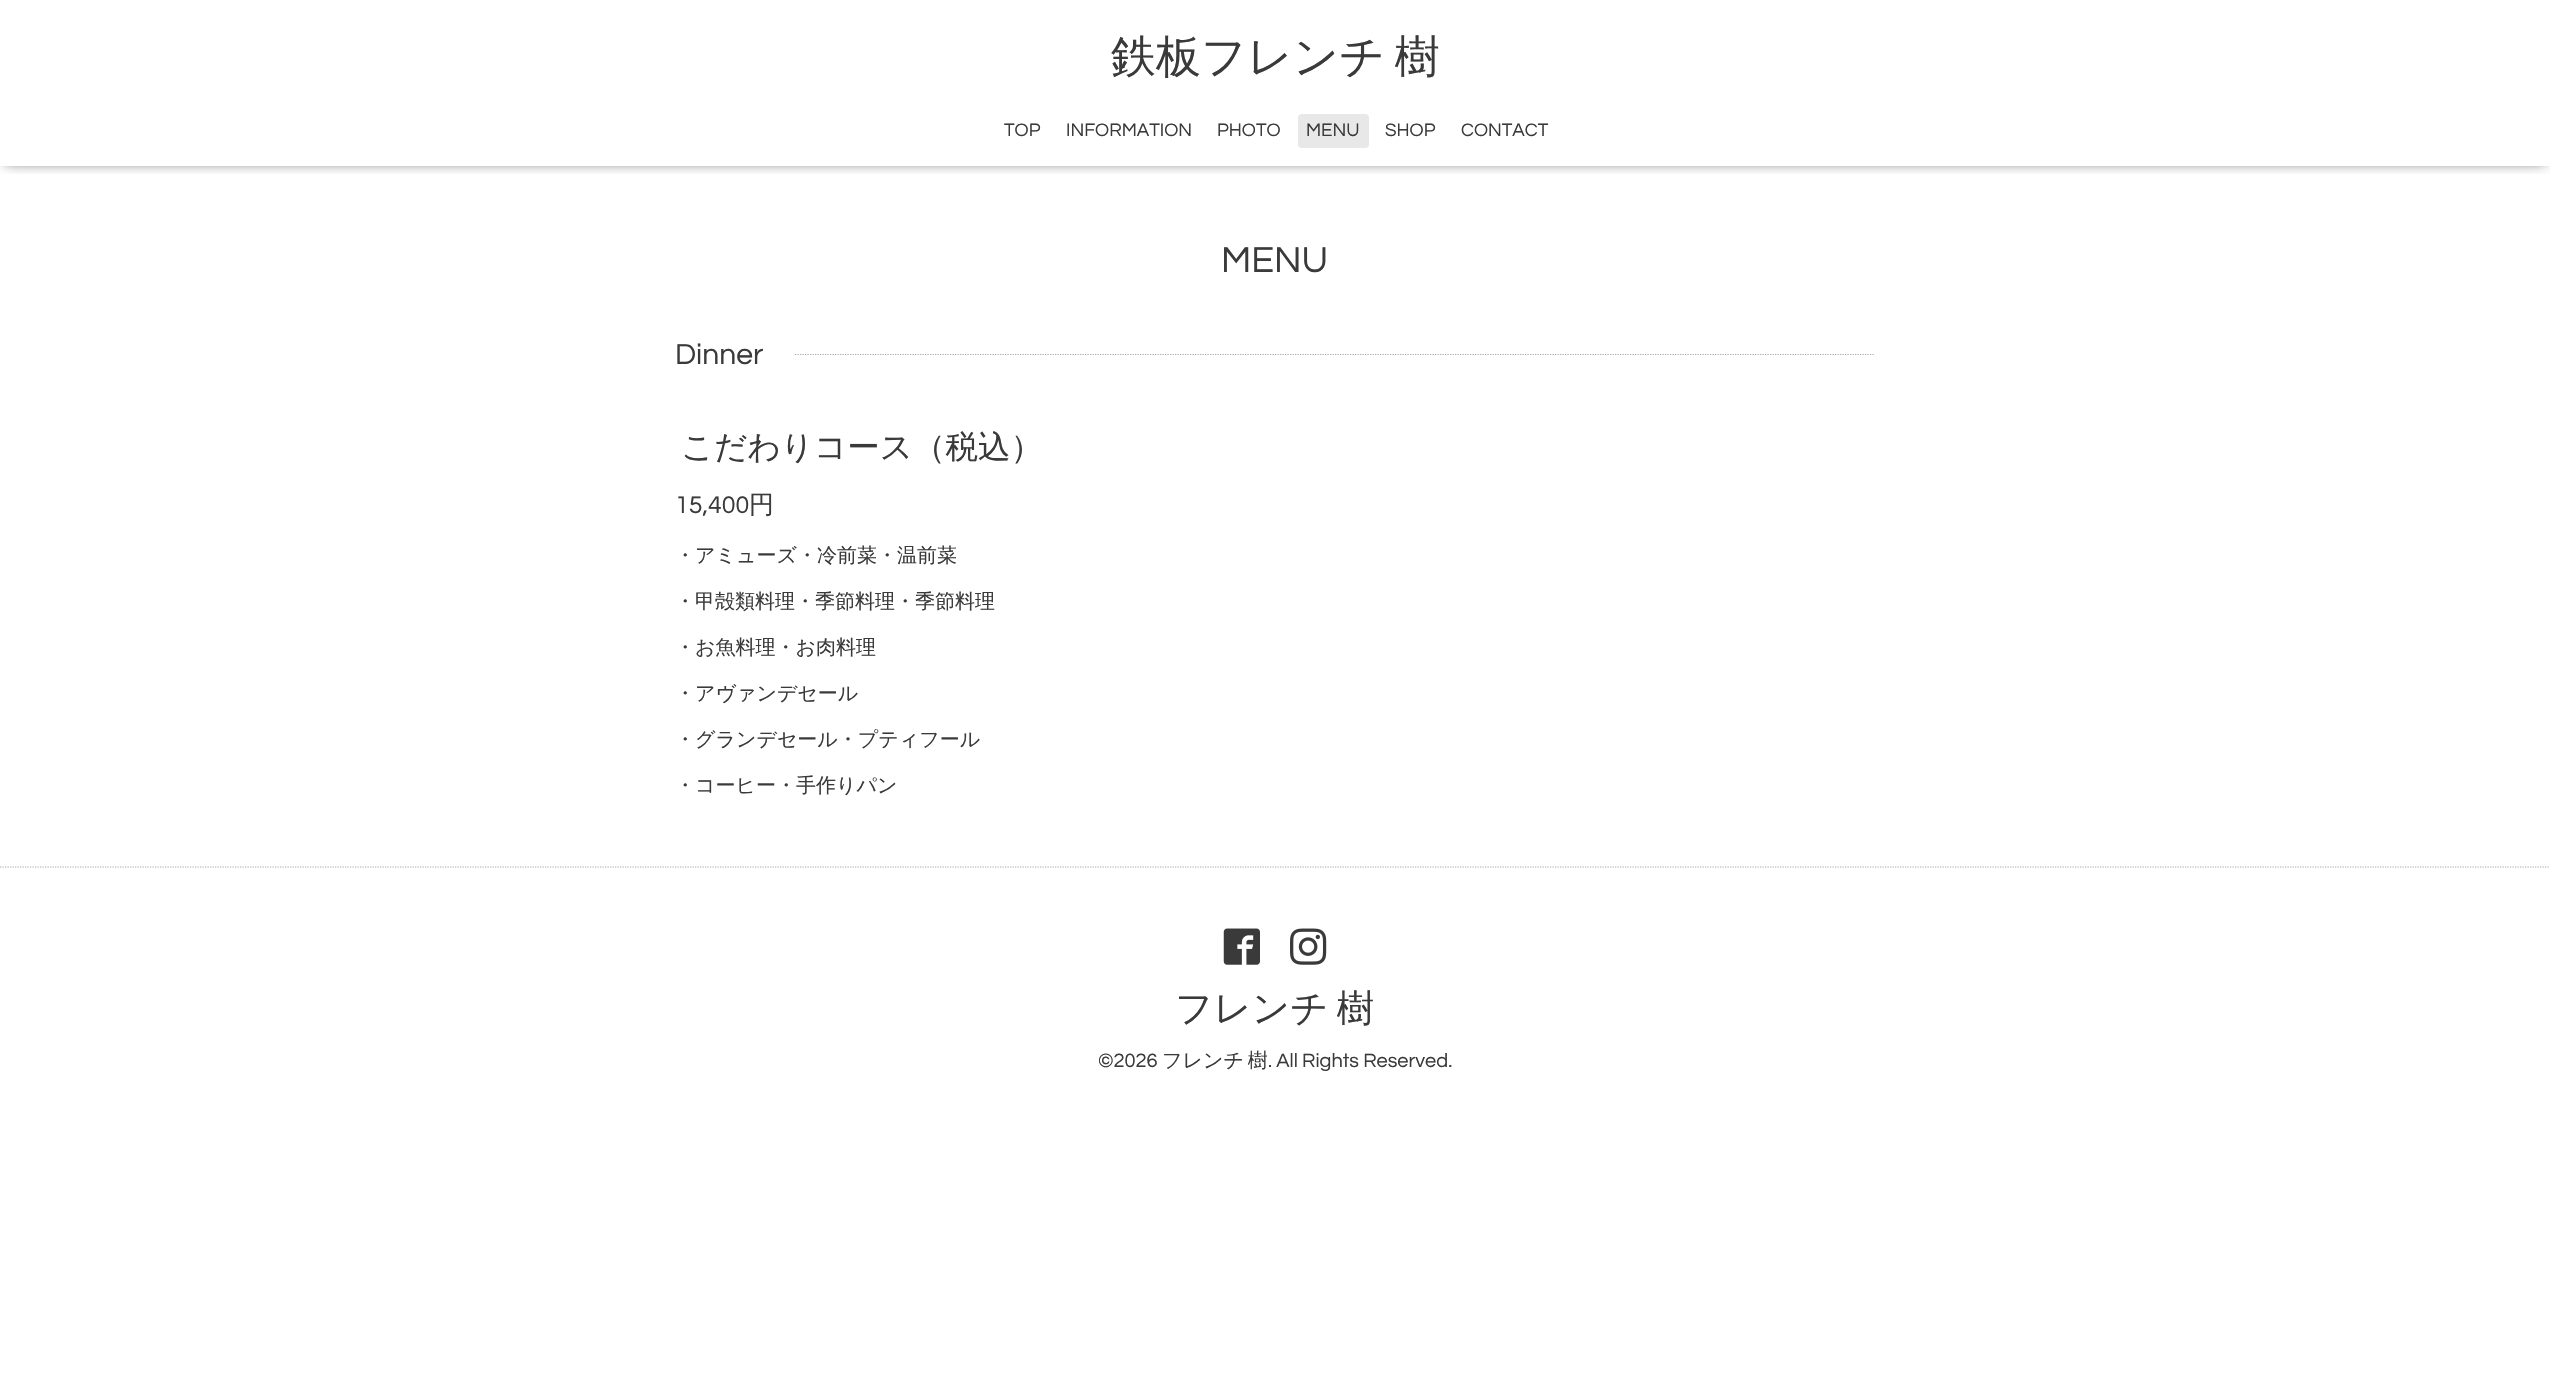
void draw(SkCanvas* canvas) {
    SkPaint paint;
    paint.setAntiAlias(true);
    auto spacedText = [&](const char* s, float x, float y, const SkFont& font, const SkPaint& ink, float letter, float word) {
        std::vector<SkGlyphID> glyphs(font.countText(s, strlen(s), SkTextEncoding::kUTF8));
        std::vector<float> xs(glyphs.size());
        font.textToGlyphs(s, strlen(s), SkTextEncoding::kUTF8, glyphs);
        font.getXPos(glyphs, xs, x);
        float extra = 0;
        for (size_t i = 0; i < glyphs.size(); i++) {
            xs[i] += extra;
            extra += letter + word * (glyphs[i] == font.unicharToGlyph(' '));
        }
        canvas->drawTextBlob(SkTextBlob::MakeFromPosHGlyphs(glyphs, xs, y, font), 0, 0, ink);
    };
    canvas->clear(0xFFFFFFFF);
    canvas->save();
    canvas->clipRect(SkRect::MakeXYWH(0, 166, 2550, 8));
    paint.setColor(0x99000000);
    paint.setMaskFilter(SkMaskFilter::MakeBlur(kNormal_SkBlurStyle, 6));
    canvas->drawRect(SkRect::MakeXYWH(5, 6, 2540, 157), paint);
    paint.setMaskFilter(nullptr);
    canvas->restore();
    SkFont font1(fontMgr->matchFamilyStyle("WenQuanYi Zen Hei", SkFontStyle(500, SkFontStyle::kNormal_Width, SkFontStyle::kUpright_Slant)), 45);
    font1.setSubpixel(true);
    paint.setColor(0xFF3A3A3A);
    spacedText("鉄板フレンチ 樹", 1111, 72, font1, paint, 0, -4);
    SkFont font2(fontMgr->matchFamilyStyle("Questrial", SkFontStyle::Normal()), 18.75f);
    font2.setSubpixel(true);
    canvas->drawString("TOP", 1004, 136, font2, paint);
    canvas->drawString("INFORMATION", 1066, 136, font2, paint);
    canvas->drawString("PHOTO", 1217, 136, font2, paint);
    paint.setColor(0xFFE8E8E8);
    canvas->drawRoundRect(SkRect::MakeXYWH(1298, 114, 71, 34), 4, 4, paint);
    paint.setColor(0xFF3A3A3A);
    canvas->drawString("MENU", 1306, 136, font2, paint);
    canvas->drawString("SHOP", 1385, 136, font2, paint);
    canvas->drawString("CONTACT", 1461, 136, font2, paint);
    SkFont font3(fontMgr->matchFamilyStyle("Questrial", SkFontStyle::Normal()), 37.5f);
    font3.setSubpixel(true);
    canvas->drawString("MENU", 1221, 272, font3, paint);
    paint.setStyle(SkPaint::kStroke_Style);
    paint.setStrokeWidth(1.2f);
    paint.setColor(0xFFA9A9A9);
    paint.setPathEffect(SkDashPathEffect::Make({{1.25f, 1.25f}}, 0));
    canvas->drawPath(SkPathBuilder().moveTo(675, 354.5f).lineTo(1875, 354.5f).detach(), paint);
    paint.setPathEffect(nullptr);
    paint.setStyle(SkPaint::kFill_Style);
    paint.setColor(0xFFFFFFFF);
    canvas->drawRect(SkRect::MakeXYWH(675, 353, 119, 3), paint);
    SkFont font4(fontMgr->matchFamilyStyle("Questrial", SkFontStyle::Normal()), 30);
    font4.setSubpixel(true);
    paint.setColor(0xFF3A3A3A);
    canvas->drawString("Dinner", 675, 364, font4, paint);
    SkFont font5(fontMgr->matchFamilyStyle("WenQuanYi Zen Hei", SkFontStyle(500, SkFontStyle::kNormal_Width, SkFontStyle::kUpright_Slant)), 32.5f);
    font5.setSubpixel(true);
    canvas->drawString("こだわりコース（税込）", 681, 458, font5, paint);
    SkFont font6(fontMgr->matchFamilyStyle("Questrial", SkFontStyle::Normal()), 25);
    font6.setSubpixel(true);
    canvas->drawString("15,400", 675, 513, font6, paint);
    SkFont font7(fontMgr->matchFamilyStyle("WenQuanYi Zen Hei", SkFontStyle(500, SkFontStyle::kNormal_Width, SkFontStyle::kUpright_Slant)), 25);
    font7.setSubpixel(true);
    canvas->drawString("円", 749, 513, font7, paint);
    SkFont font8(fontMgr->matchFamilyStyle("WenQuanYi Zen Hei", SkFontStyle(500, SkFontStyle::kNormal_Width, SkFontStyle::kUpright_Slant)), 20);
    font8.setSubpixel(true);
    canvas->drawString("・アミューズ・冷前菜・温前菜", 675, 562, font8, paint);
    canvas->drawString("・甲殻類料理・季節料理・季節料理", 675, 608, font8, paint);
    canvas->drawString("・お魚料理・お肉料理", 675, 654, font8, paint);
    canvas->drawString("・アヴァンデセール", 675, 700, font8, paint);
    canvas->drawString("・グランデセール・プティフール", 675, 746, font8, paint);
    canvas->drawString("・コーヒー・手作りパン", 675, 792, font8, paint);
    paint.setStyle(SkPaint::kStroke_Style);
    paint.setColor(0xFFA9A9A9);
    paint.setPathEffect(SkDashPathEffect::Make({{1.25f, 1.25f}}, 0));
    canvas->drawPath(SkPathBuilder().moveTo(0, 867).lineTo(2550, 867).detach(), paint);
    paint.setPathEffect(nullptr);
    canvas->drawImageRect(SkImages::DeferredFromEncodedData(SkData::MakeFromFileName("img1.png")), SkRect::MakeXYWH(1223, 928, 37, 37), SkSamplingOptions());
    canvas->drawImageRect(SkImages::DeferredFromEncodedData(SkData::MakeFromFileName("img2.png")), SkRect::MakeXYWH(1290, 928, 37, 37), SkSamplingOptions());
    SkFont font9(fontMgr->matchFamilyStyle("WenQuanYi Zen Hei", SkFontStyle(500, SkFontStyle::kNormal_Width, SkFontStyle::kUpright_Slant)), 37.5f);
    font9.setSubpixel(true);
    paint.setStyle(SkPaint::kFill_Style);
    paint.setColor(0xFF3A3A3A);
    spacedText("フレンチ 樹", 1175, 1021, font9, paint, 0, -3);
    SkFont font10(fontMgr->matchFamilyStyle("Questrial", SkFontStyle::Normal()), 20);
    font10.setSubpixel(true);
    canvas->drawString("©2026", 1098, 1067, font10, paint);
    spacedText("フレンチ 樹", 1162, 1067, font8, paint, 0, -2);
    canvas->drawString(". All Rights Reserved.", 1268, 1067, font10, paint);
}
